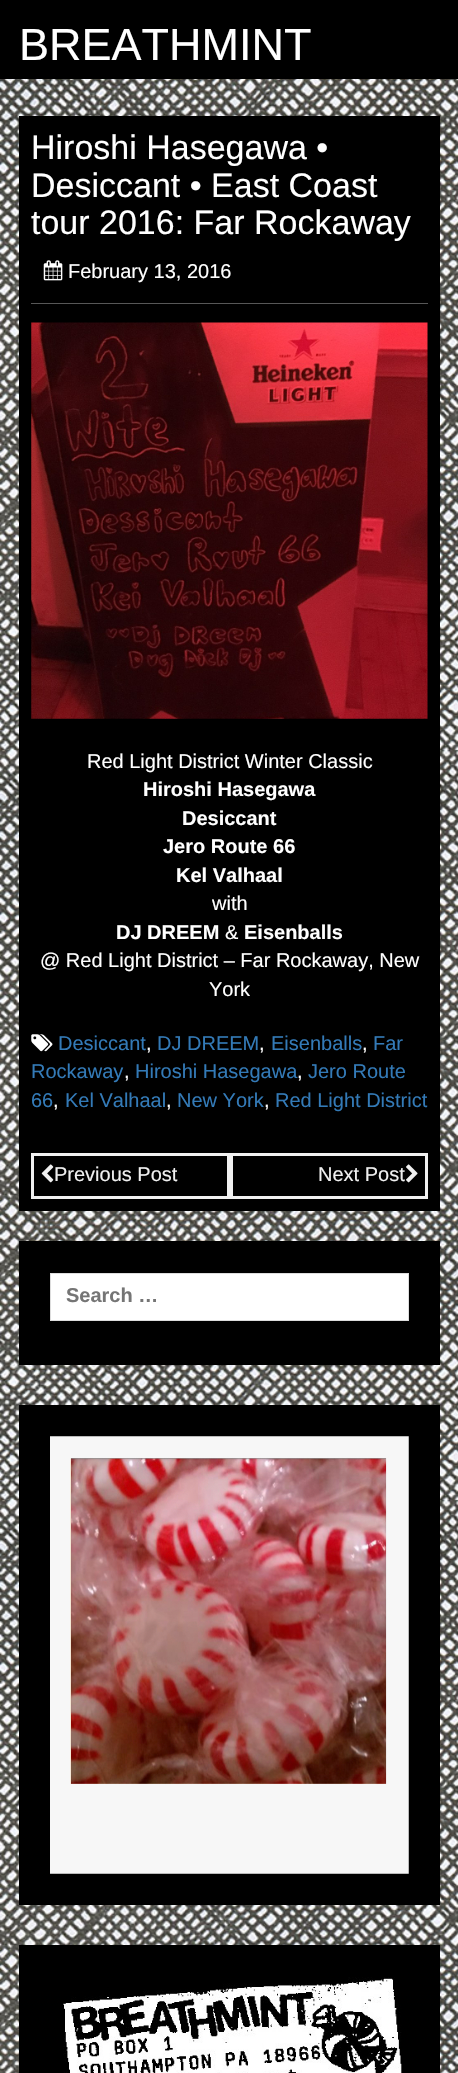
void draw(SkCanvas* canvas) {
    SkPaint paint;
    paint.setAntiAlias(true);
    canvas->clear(0xFFFFFFFF);
    canvas->drawImageRect(SkImages::DeferredFromEncodedData(SkData::MakeFromFileName("img1.png")), SkRect::MakeXYWH(0, 79, 458, 1994), SkSamplingOptions());
    paint.setColor(0xFF000000);
    canvas->drawRect(SkRect::MakeXYWH(0, 0, 458, 79), paint);
    SkFont font1(fontMgr->matchFamilyStyle("Liberation Sans", SkFontStyle::Normal()), 45);
    font1.setSubpixel(true);
    paint.setColor(0xFFFFFFFF);
    canvas->drawString("BREATHMINT", 19, 60, font1, paint);
    paint.setColor(0xFF000000);
    canvas->drawRect(SkRect::MakeXYWH(19, 116, 421, 1095), paint);
    paint.setColor(0xFF575757);
    canvas->drawRect(SkRect::MakeXYWH(31, 303, 397, 1), paint);
    SkFont font2(fontMgr->matchFamilyStyle("Liberation Sans", SkFontStyle::Normal()), 34);
    font2.setSubpixel(true);
    paint.setColor(0xFFFFFFFF);
    canvas->drawString("Hiroshi Hasegawa •", 31, 159, font2, paint);
    canvas->drawString("Desiccant • East Coast", 31, 197, font2, paint);
    canvas->drawString("tour 2016: Far Rockaway", 31, 234, font2, paint);
    canvas->drawImageRect(SkImages::DeferredFromEncodedData(SkData::MakeFromFileName("img2.png")), SkRect::MakeXYWH(43, 260, 20, 21), SkSamplingOptions());
    SkFont font3(fontMgr->matchFamilyStyle("Liberation Sans", SkFontStyle::Normal()), 20);
    font3.setSubpixel(true);
    canvas->drawString("February 13, 2016", 68, 278, font3, paint);
    canvas->drawImageRect(SkImages::DeferredFromEncodedData(SkData::MakeFromFileName("img3.png")), SkRect::MakeXYWH(31, 322, 397, 397), SkSamplingOptions());
    canvas->drawString("Red Light District Winter Classic", 87, 768, font3, paint);
    SkFont font4(fontMgr->matchFamilyStyle("Liberation Sans", SkFontStyle::Bold()), 20);
    font4.setSubpixel(true);
    canvas->drawString("Hiroshi Hasegawa", 143, 796, font4, paint);
    canvas->drawString("Desiccant", 182, 825, font4, paint);
    canvas->drawString("Jero Route 66", 163, 853, font4, paint);
    canvas->drawString("Kel Valhaal", 176, 882, font4, paint);
    canvas->drawString("with", 212, 910, font3, paint);
    canvas->drawString("DJ DREEM", 116, 939, font4, paint);
    canvas->drawString("&", 225, 939, font3, paint);
    canvas->drawString("Eisenballs", 244, 939, font4, paint);
    canvas->drawString("@ Red Light District – Far Rockaway, New", 40, 967, font3, paint);
    canvas->drawString("York", 209, 996, font3, paint);
    canvas->drawImageRect(SkImages::DeferredFromEncodedData(SkData::MakeFromFileName("img4.png")), SkRect::MakeXYWH(31, 1034, 22, 18), SkSamplingOptions());
    paint.setColor(0xFF337AB7);
    canvas->drawString("Desiccant", 58, 1050, font3, paint);
    paint.setColor(0xFFFFFFFF);
    canvas->drawString(",", 146, 1050, font3, paint);
    paint.setColor(0xFF337AB7);
    canvas->drawString("DJ DREEM", 157, 1050, font3, paint);
    paint.setColor(0xFFFFFFFF);
    canvas->drawString(",", 259, 1050, font3, paint);
    paint.setColor(0xFF337AB7);
    canvas->drawString("Eisenballs", 271, 1050, font3, paint);
    paint.setColor(0xFFFFFFFF);
    canvas->drawString(",", 362, 1050, font3, paint);
    paint.setColor(0xFF337AB7);
    canvas->drawString("Far", 373, 1050, font3, paint);
    canvas->drawString("Rockaway", 31, 1078, font3, paint);
    paint.setColor(0xFFFFFFFF);
    canvas->drawString(",", 124, 1078, font3, paint);
    paint.setColor(0xFF337AB7);
    canvas->drawString("Hiroshi Hasegawa", 135, 1078, font3, paint);
    paint.setColor(0xFFFFFFFF);
    canvas->drawString(",", 297, 1078, font3, paint);
    paint.setColor(0xFF337AB7);
    canvas->drawString("Jero Route", 308, 1078, font3, paint);
    canvas->drawString("66", 31, 1107, font3, paint);
    paint.setColor(0xFFFFFFFF);
    canvas->drawString(",", 53, 1107, font3, paint);
    paint.setColor(0xFF337AB7);
    canvas->drawString("Kel Valhaal", 65, 1107, font3, paint);
    paint.setColor(0xFFFFFFFF);
    canvas->drawString(",", 166, 1107, font3, paint);
    paint.setColor(0xFF337AB7);
    canvas->drawString("New York", 177, 1107, font3, paint);
    paint.setColor(0xFFFFFFFF);
    canvas->drawString(",", 264, 1107, font3, paint);
    paint.setColor(0xFF337AB7);
    canvas->drawString("Red Light District", 275, 1107, font3, paint);
    paint.setStyle(SkPaint::kStroke_Style);
    paint.setStrokeWidth(3);
    paint.setColor(0xFFF0F0F0);
    canvas->drawRect(SkRect::MakeXYWH(32.5f, 1154.5f, 196, 43), paint);
    canvas->drawImageRect(SkImages::DeferredFromEncodedData(SkData::MakeFromFileName("img5.png")), SkRect::MakeXYWH(41, 1164, 13, 19), SkSamplingOptions());
    paint.setStyle(SkPaint::kFill_Style);
    canvas->drawString("Previous Post", 54, 1181, font3, paint);
    paint.setStyle(SkPaint::kStroke_Style);
    canvas->drawRect(SkRect::MakeXYWH(231.5f, 1154.5f, 195, 43), paint);
    paint.setStyle(SkPaint::kFill_Style);
    canvas->drawString("Next Post", 318, 1181, font3, paint);
    canvas->drawImageRect(SkImages::DeferredFromEncodedData(SkData::MakeFromFileName("img6.png")), SkRect::MakeXYWH(406, 1164, 12, 19), SkSamplingOptions());
    paint.setColor(0xFF000000);
    canvas->drawRect(SkRect::MakeXYWH(19, 1241, 421, 124), paint);
    paint.setColor(0xFFFFFFFF);
    canvas->drawRect(SkRect::MakeXYWH(50.5f, 1273.5f, 358, 47), paint);
    paint.setStyle(SkPaint::kStroke_Style);
    paint.setStrokeWidth(1);
    paint.setColor(0xFFDDDDDD);
    canvas->drawRect(SkRect::MakeXYWH(50.5f, 1273.5f, 358, 47), paint);
    paint.setStyle(SkPaint::kFill_Style);
    paint.setColor(0xFF757575);
    canvas->drawString("Search …", 66, 1302, font4, paint);
    paint.setColor(0xFF000000);
    canvas->drawRect(SkRect::MakeXYWH(19, 1405, 421, 500), paint);
    canvas->drawImageRect(SkImages::DeferredFromEncodedData(SkData::MakeFromFileName("img7.png")), SkRect::MakeXYWH(50, 1436, 359, 438), SkSamplingOptions());
    canvas->drawRect(SkRect::MakeXYWH(19, 1945, 421, 128), paint);
    canvas->drawImageRect(SkImages::DeferredFromEncodedData(SkData::MakeFromFileName("img8.png")), SkRect::MakeXYWH(63, 1977, 339, 96), SkSamplingOptions());
}
